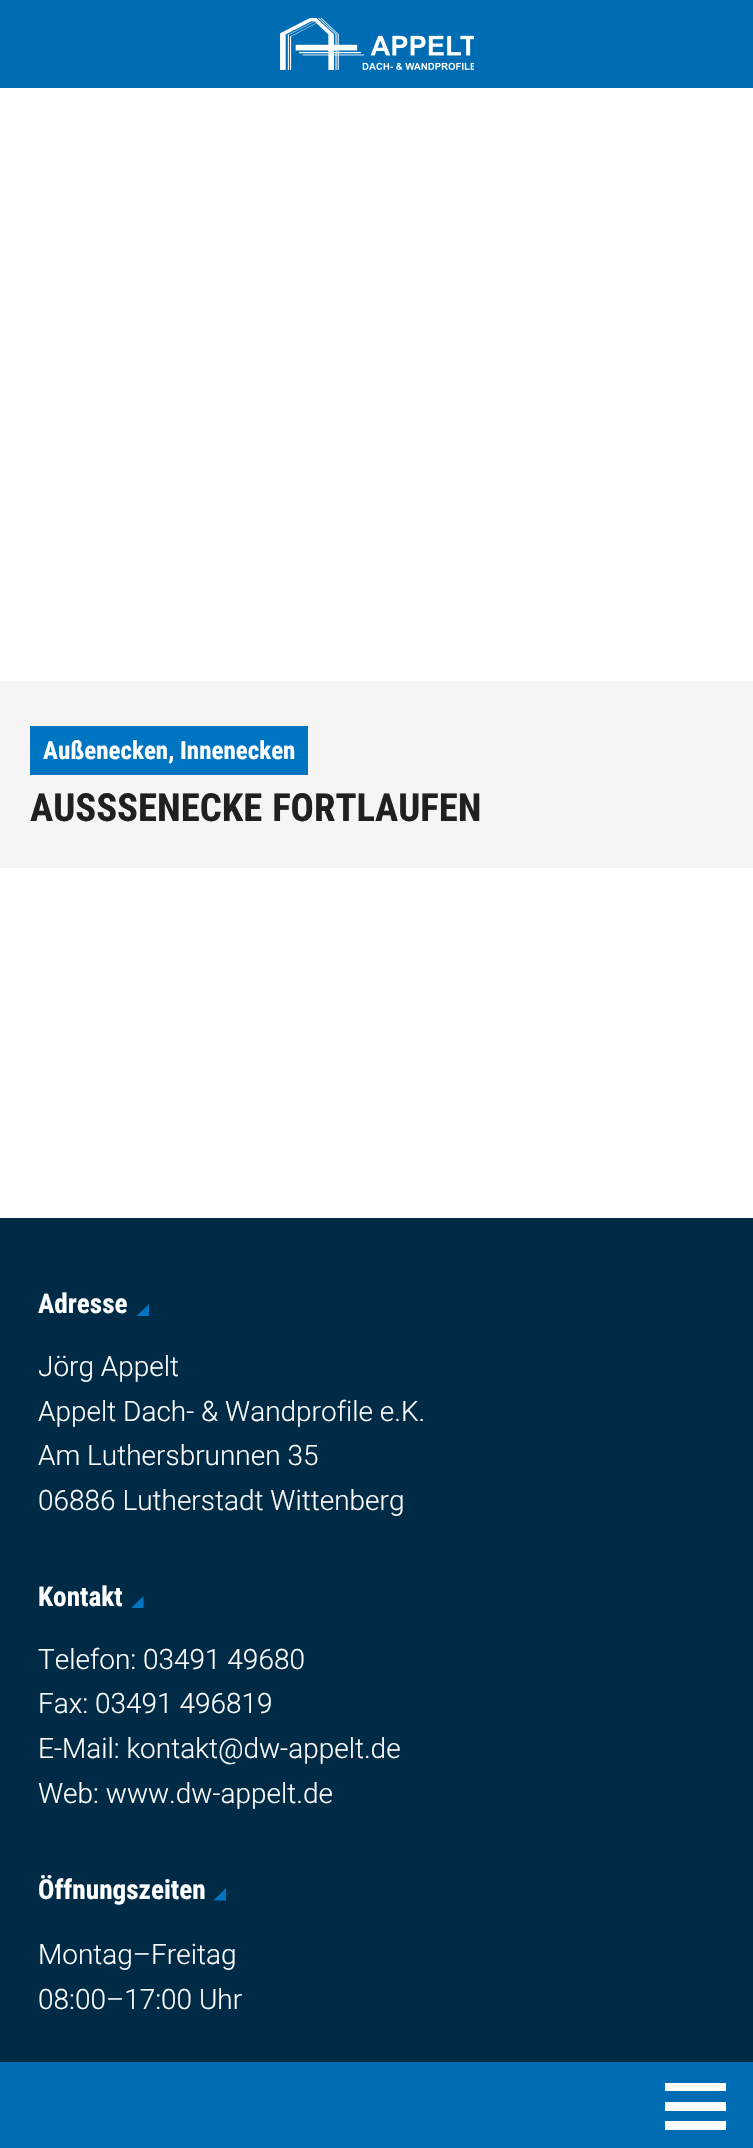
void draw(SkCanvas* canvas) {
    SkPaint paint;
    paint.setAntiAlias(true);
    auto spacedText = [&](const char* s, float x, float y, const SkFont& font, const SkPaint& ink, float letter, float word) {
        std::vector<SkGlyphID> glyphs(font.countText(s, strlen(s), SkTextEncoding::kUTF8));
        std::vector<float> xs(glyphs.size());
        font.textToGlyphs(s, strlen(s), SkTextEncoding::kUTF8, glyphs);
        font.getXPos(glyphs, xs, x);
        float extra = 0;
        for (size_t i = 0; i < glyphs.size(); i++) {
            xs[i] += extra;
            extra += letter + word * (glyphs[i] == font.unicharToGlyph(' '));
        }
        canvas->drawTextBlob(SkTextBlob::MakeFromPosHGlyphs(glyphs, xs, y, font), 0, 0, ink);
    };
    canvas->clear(0xFFFFFFFF);
    paint.setColor(0xFF006CB4);
    canvas->drawRect(SkRect::MakeXYWH(0, 0, 753, 88), paint);
    canvas->drawImageRect(SkImages::DeferredFromEncodedData(SkData::MakeFromFileName("img1.png")), SkRect::MakeXYWH(280, 18, 194, 52), SkSamplingOptions());
    paint.setColor(0xFFF5F5F5);
    canvas->drawRect(SkRect::MakeXYWH(0, 681, 753, 187), paint);
    paint.setColor(0xFF0075C2);
    canvas->drawRect(SkRect::MakeXYWH(30, 726, 278, 49), paint);
    SkFont font1(fontMgr->matchFamilyStyle("Roboto Condensed", SkFontStyle::Bold()), 25);
    font1.setSubpixel(true);
    paint.setColor(0xFFFFFFFF);
    canvas->drawString("Außenecken, Innenecken", 43, 759, font1, paint);
    SkFont font2(fontMgr->matchFamilyStyle("Roboto Condensed", SkFontStyle::Bold()), 38.75f);
    font2.setSubpixel(true);
    paint.setColor(0xFF202020);
    canvas->drawString("AUSS", 30, 821, font2, paint);
    spacedText("SENECKE FORTLAUFEN", 117, 821, font2, paint, 0, 1);
    paint.setColor(0xFF006CB4);
    canvas->drawRect(SkRect::MakeXYWH(0, 2062, 753, 86), paint);
    paint.setColor(0xFFFFFFFF);
    canvas->drawRect(SkRect::MakeXYWH(665, 2083, 61, 8), paint);
    canvas->drawRect(SkRect::MakeXYWH(665, 2102, 61, 9), paint);
    canvas->drawRect(SkRect::MakeXYWH(665, 2121, 61, 9), paint);
    paint.setColor(0xFF002B47);
    canvas->drawRect(SkRect::MakeXYWH(0, 1218, 753, 844), paint);
    SkFont font3(fontMgr->matchFamilyStyle("Roboto Condensed", SkFontStyle::Bold()), 27.25f);
    font3.setSubpixel(true);
    paint.setColor(0xFFFFFFFF);
    canvas->drawString("Adresse", 38, 1313, font3, paint);
    paint.setColor(0xFF0075C2);
    canvas->drawPath(SkPathBuilder().moveTo(149, 1316).lineTo(136.5f, 1316).lineTo(149, 1304).close().detach(), paint);
    SkFont font4(fontMgr->matchFamilyStyle("Roboto", SkFontStyle(300, SkFontStyle::kNormal_Width, SkFontStyle::kUpright_Slant)), 28);
    font4.setSubpixel(true);
    paint.setColor(0xFFFFFFFF);
    canvas->drawString("Jörg Appelt", 38, 1376, font4, paint);
    canvas->drawString("Appelt Dach- & Wandprofile e.K.", 38, 1421, font4, paint);
    canvas->drawString("Am Luthersbrunnen 35", 38, 1465, font4, paint);
    canvas->drawString("06886 Lutherstadt Wittenberg", 38, 1510, font4, paint);
    canvas->drawString("Kontakt", 38, 1606, font3, paint);
    paint.setColor(0xFF0075C2);
    canvas->drawPath(SkPathBuilder().moveTo(143.5f, 1608).lineTo(131, 1608).lineTo(143.5f, 1596).close().detach(), paint);
    paint.setColor(0xFFFFFFFF);
    canvas->drawString("Telefon: 03491 49680", 38, 1669, font4, paint);
    canvas->drawString("Fax: 03491 496819", 38, 1713, font4, paint);
    canvas->drawString("E-Mail: kontakt@dw-appelt.de", 38, 1758, font4, paint);
    canvas->drawString("Web: www.dw-appelt.de", 38, 1803, font4, paint);
    canvas->drawString("Öffnungszeiten", 38, 1899, font3, paint);
    paint.setColor(0xFF0075C2);
    canvas->drawPath(SkPathBuilder().moveTo(226, 1900.5f).lineTo(213.5f, 1900.5f).lineTo(226, 1888).close().detach(), paint);
    paint.setColor(0xFFFFFFFF);
    canvas->drawString("Montag–Freitag", 38, 1964, font4, paint);
    canvas->drawString("08:00–17:00 Uhr", 38, 2009, font4, paint);
}
